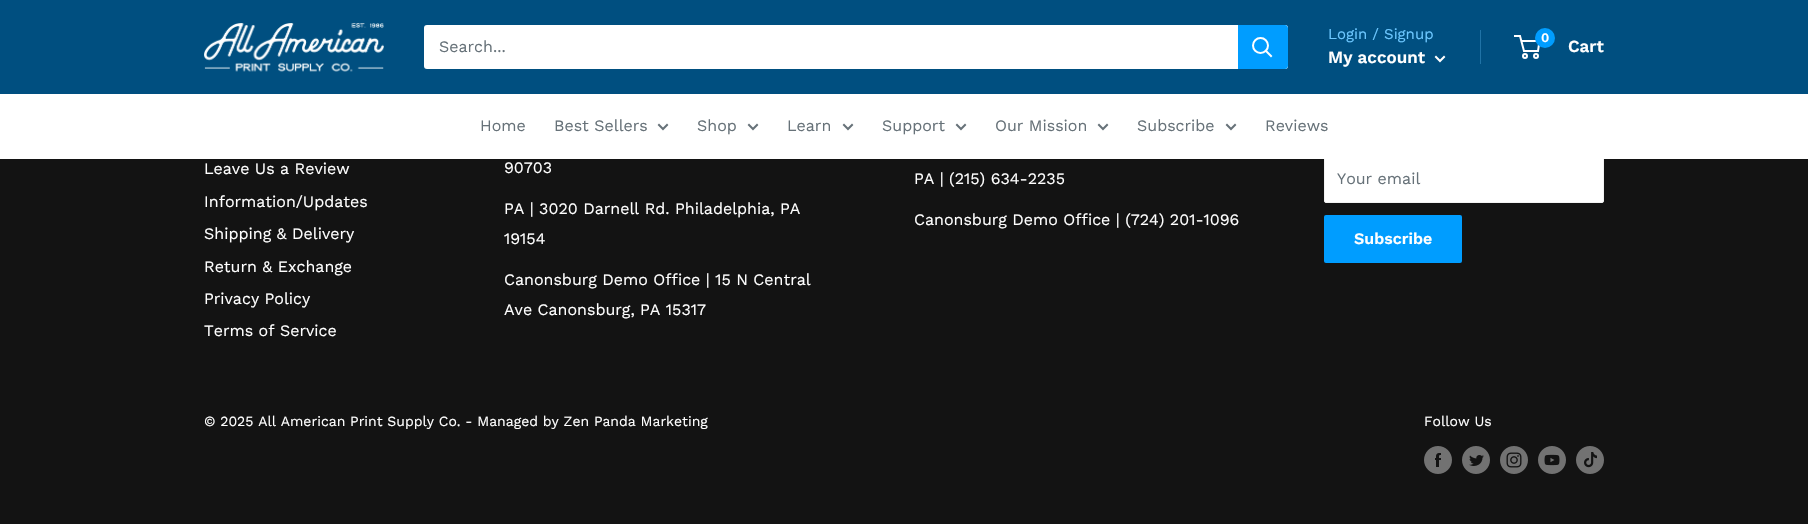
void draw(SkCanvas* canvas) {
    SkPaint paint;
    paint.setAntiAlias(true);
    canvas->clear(0xFF131313);
    paint.setColor(0xFF004F80);
    canvas->drawRect(SkRect::MakeXYWH(0, 0, 1808, 94), paint);
    canvas->drawImageRect(SkImages::DeferredFromEncodedData(SkData::MakeFromFileName("img1.png")), SkRect::MakeXYWH(204, 23, 180, 49), SkSamplingOptions());
    paint.setColor(0xFFFFFFFF);
    canvas->drawRoundRect(SkRect::MakeXYWH(424, 25, 864, 44), 3, 3, paint);
    SkFont font1(fontMgr->matchFamilyStyle("Work Sans", SkFontStyle::Normal()), 16);
    font1.setSubpixel(true);
    paint.setColor(0xFF677279);
    canvas->drawString("Search...", 439, 52, font1, paint);
    paint.setColor(0xFF009DFF);
    canvas->drawPath(SkPathBuilder().moveTo(1238, 25).lineTo(1285, 25).cubicTo(1286.5f, 25, 1288, 26.5f, 1288, 28).lineTo(1288, 66).cubicTo(1288, 67.5f, 1286.5f, 69, 1285, 69).lineTo(1238, 69).close().detach(), paint);
    paint.setStyle(SkPaint::kStroke_Style);
    paint.setStrokeWidth(2);
    paint.setStrokeCap(SkPaint::kSquare_Cap);
    paint.setColor(0xFFFFFFFF);
    canvas->drawPath(SkPathBuilder().moveTo(1271, 56).lineTo(1266, 51).detach(), paint);
    paint.setStrokeCap(SkPaint::kButt_Cap);
    canvas->drawCircle(1260.5f, 45.5f, 7.5f, paint);
    SkFont font2(fontMgr->matchFamilyStyle("Work Sans", SkFontStyle::Normal()), 15);
    font2.setSubpixel(true);
    paint.setStyle(SkPaint::kFill_Style);
    paint.setColor(0xFF6CC7FF);
    canvas->drawString("Login / Signup", 1328, 39, font2, paint);
    paint.setColor(0xFF2073A6);
    canvas->drawRect(SkRect::MakeXYWH(1480, 30, 1, 34), paint);
    SkFont font3(fontMgr->matchFamilyStyle("Work Sans", SkFontStyle(600, SkFontStyle::kNormal_Width, SkFontStyle::kUpright_Slant)), 17);
    font3.setSubpixel(true);
    paint.setColor(0xFFFFFFFF);
    canvas->drawString("My account", 1328, 63, font3, paint);
    paint.setStyle(SkPaint::kStroke_Style);
    paint.setStrokeCap(SkPaint::kSquare_Cap);
    canvas->drawPath(SkPathBuilder().moveTo(1444, 57).lineTo(1440, 61).lineTo(1436, 57).detach(), paint);
    paint.setStrokeCap(SkPaint::kButt_Cap);
    canvas->drawCircle(1525, 56, 2, paint);
    canvas->drawCircle(1536, 56, 2, paint);
    canvas->drawPath(SkPathBuilder().moveTo(1521.5f, 41).lineTo(1539.5f, 41).lineTo(1538, 51).lineTo(1524, 51).lineTo(1520, 36).lineTo(1514, 36).detach(), paint);
    paint.setStyle(SkPaint::kFill_Style);
    paint.setColor(0xFF009DFF);
    canvas->drawCircle(1545, 38, 10, paint);
    SkFont font4(fontMgr->matchFamilyStyle("Work Sans", SkFontStyle(600, SkFontStyle::kNormal_Width, SkFontStyle::kUpright_Slant)), 13);
    font4.setSubpixel(true);
    paint.setColor(0xFFFFFFFF);
    canvas->drawString("0", 1541, 42, font4, paint);
    canvas->drawString("Cart", 1568, 52, font3, paint);
    canvas->drawRoundRect(SkRect::MakeXYWH(1324.5f, 155.5f, 279, 47), 1.5f, 1.5f, paint);
    paint.setStyle(SkPaint::kStroke_Style);
    paint.setStrokeWidth(1);
    paint.setColor(0xFFF2F2F2);
    canvas->drawRoundRect(SkRect::MakeXYWH(1324.5f, 155.5f, 279, 47), 1.5f, 1.5f, paint);
    paint.setStyle(SkPaint::kFill_Style);
    paint.setColor(0xFFFFFFFF);
    canvas->drawRect(SkRect::MakeXYWH(0, 94, 1808, 65), paint);
    paint.setColor(0xFF677279);
    canvas->drawString("Home", 480, 131, font1, paint);
    canvas->drawString("Best Sellers", 554, 131, font1, paint);
    paint.setStyle(SkPaint::kStroke_Style);
    paint.setStrokeWidth(2);
    paint.setStrokeCap(SkPaint::kSquare_Cap);
    canvas->drawPath(SkPathBuilder().moveTo(667, 125).lineTo(663, 129).lineTo(659, 125).detach(), paint);
    paint.setStyle(SkPaint::kFill_Style);
    canvas->drawString("Shop", 697, 131, font1, paint);
    paint.setStyle(SkPaint::kStroke_Style);
    canvas->drawPath(SkPathBuilder().moveTo(757, 125).lineTo(753, 129).lineTo(749, 125).detach(), paint);
    paint.setStyle(SkPaint::kFill_Style);
    canvas->drawString("Learn", 787, 131, font1, paint);
    paint.setStyle(SkPaint::kStroke_Style);
    canvas->drawPath(SkPathBuilder().moveTo(852, 125).lineTo(848, 129).lineTo(844, 125).detach(), paint);
    paint.setStyle(SkPaint::kFill_Style);
    canvas->drawString("Support", 882, 131, font1, paint);
    paint.setStyle(SkPaint::kStroke_Style);
    canvas->drawPath(SkPathBuilder().moveTo(965, 125).lineTo(961, 129).lineTo(957, 125).detach(), paint);
    paint.setStyle(SkPaint::kFill_Style);
    canvas->drawString("Our Mission", 995, 131, font1, paint);
    paint.setStyle(SkPaint::kStroke_Style);
    canvas->drawPath(SkPathBuilder().moveTo(1107, 125).lineTo(1103, 129).lineTo(1099, 125).detach(), paint);
    paint.setStyle(SkPaint::kFill_Style);
    canvas->drawString("Subscribe", 1137, 131, font1, paint);
    paint.setStyle(SkPaint::kStroke_Style);
    canvas->drawPath(SkPathBuilder().moveTo(1235, 125).lineTo(1231, 129).lineTo(1227, 125).detach(), paint);
    paint.setStyle(SkPaint::kFill_Style);
    canvas->drawString("Reviews", 1265, 131, font1, paint);
    paint.setColor(0xFFFFFFFF);
    canvas->drawString("Leave Us a Review", 204, 174, font1, paint);
    canvas->drawString("Information/Updates", 204, 207, font1, paint);
    canvas->drawString("Shipping & Delivery", 204, 239, font1, paint);
    canvas->drawString("Return & Exchange", 204, 272, font1, paint);
    canvas->drawString("Privacy Policy", 204, 304, font1, paint);
    canvas->drawString("Terms of Service", 204, 336, font1, paint);
    canvas->drawString("90703", 504, 173, font1, paint);
    canvas->drawString("PA | 3020 Darnell Rd. Philadelphia, PA", 504, 214, font1, paint);
    canvas->drawString("19154", 504, 244, font1, paint);
    canvas->drawString("Canonsburg Demo Office | 15 N Central", 504, 285, font1, paint);
    canvas->drawString("Ave Canonsburg, PA 15317", 504, 315, font1, paint);
    canvas->drawString("PA | (215) 634-2235", 914, 184, font1, paint);
    canvas->drawString("Canonsburg Demo Office | (724) 201-1096", 914, 225, font1, paint);
    paint.setColor(0xFF677279);
    canvas->drawString("Your email", 1337, 184, font1, paint);
    paint.setColor(0xFF009DFF);
    canvas->drawRoundRect(SkRect::MakeXYWH(1324, 215, 138, 48), 2, 2, paint);
    SkFont font5(fontMgr->matchFamilyStyle("Work Sans", SkFontStyle(600, SkFontStyle::kNormal_Width, SkFontStyle::kUpright_Slant)), 16);
    font5.setSubpixel(true);
    paint.setColor(0xFFFFFFFF);
    canvas->drawString("Subscribe", 1354, 244, font5, paint);
    SkFont font6(fontMgr->matchFamilyStyle("Work Sans", SkFontStyle::Normal()), 14);
    font6.setSubpixel(true);
    canvas->drawString("© 2025 All American Print Supply Co. - Managed by Zen Panda Marketing", 204, 426, font6, paint);
    canvas->drawString("Follow Us", 1424, 426, font6, paint);
    canvas->drawImageRect(SkImages::DeferredFromEncodedData(SkData::MakeFromFileName("img2.png")), SkRect::MakeXYWH(1424, 446, 28, 28), SkSamplingOptions());
    canvas->drawImageRect(SkImages::DeferredFromEncodedData(SkData::MakeFromFileName("img3.png")), SkRect::MakeXYWH(1462, 446, 28, 28), SkSamplingOptions());
    canvas->drawImageRect(SkImages::DeferredFromEncodedData(SkData::MakeFromFileName("img4.png")), SkRect::MakeXYWH(1500, 446, 28, 28), SkSamplingOptions());
    canvas->drawImageRect(SkImages::DeferredFromEncodedData(SkData::MakeFromFileName("img5.png")), SkRect::MakeXYWH(1538, 446, 28, 28), SkSamplingOptions());
    canvas->drawImageRect(SkImages::DeferredFromEncodedData(SkData::MakeFromFileName("img6.png")), SkRect::MakeXYWH(1576, 446, 28, 28), SkSamplingOptions());
}
